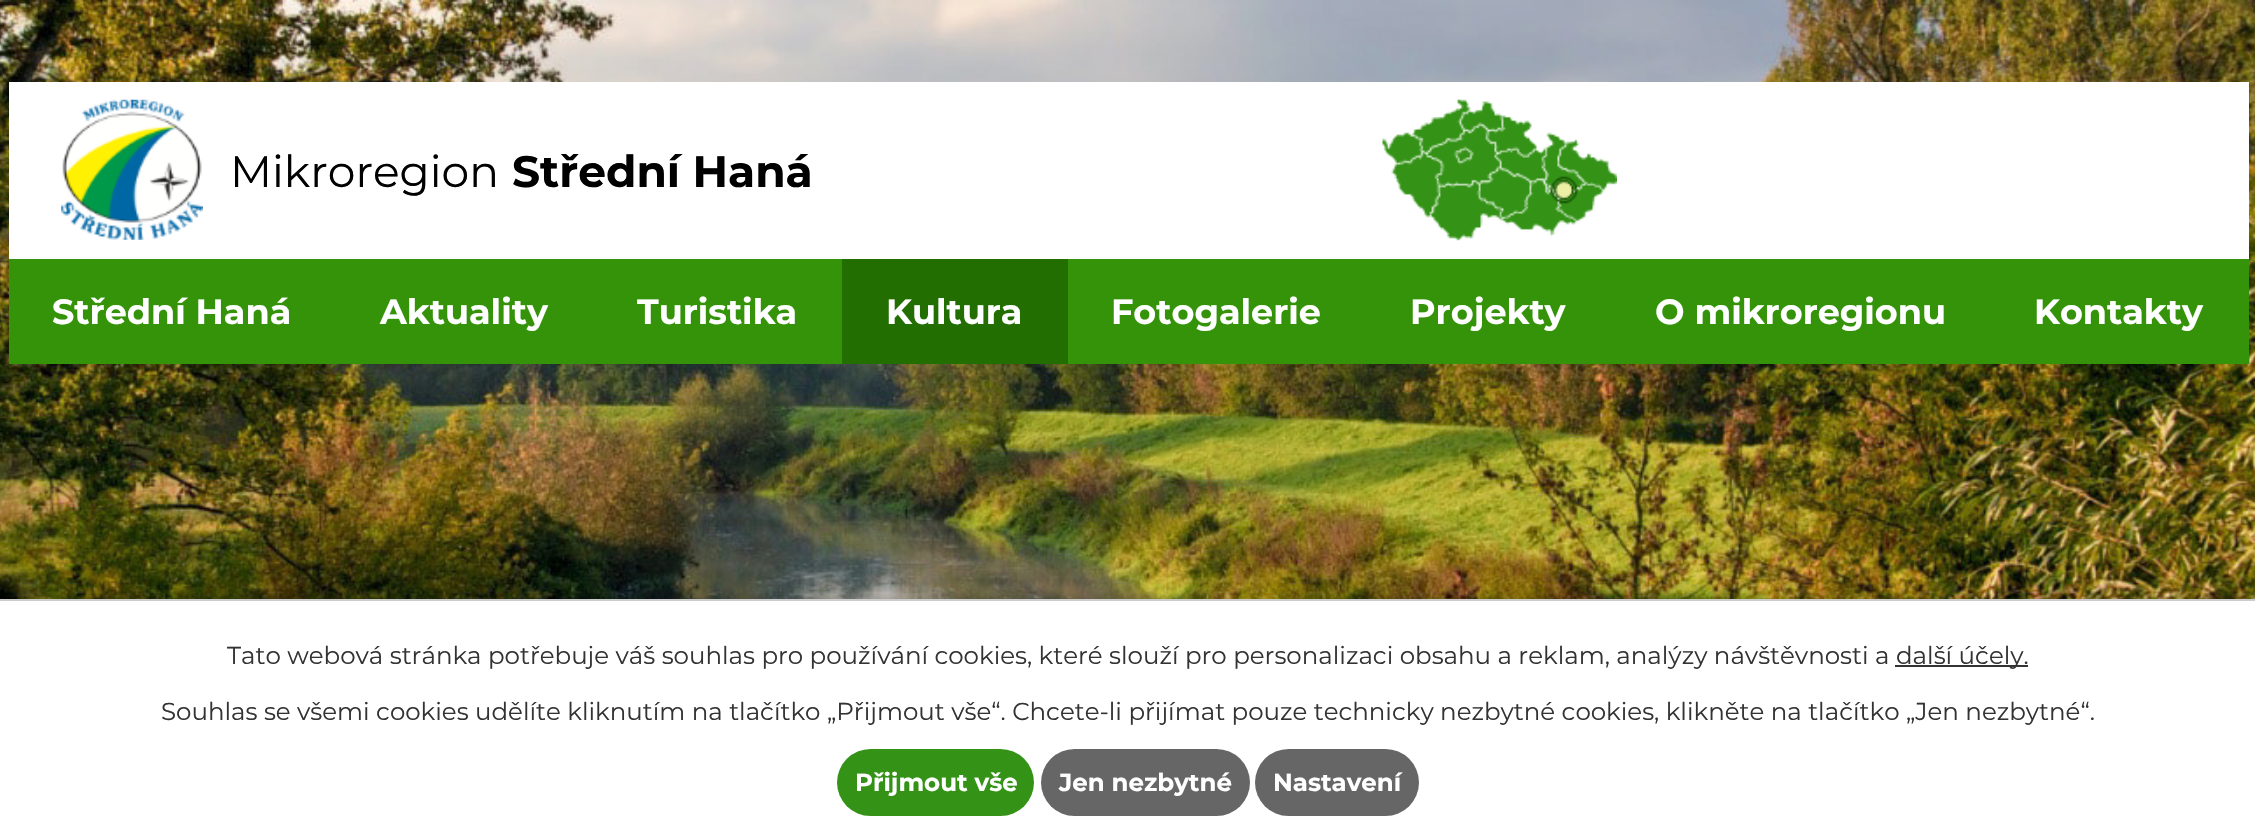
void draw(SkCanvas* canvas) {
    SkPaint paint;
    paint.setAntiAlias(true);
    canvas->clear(0xFFFFFFFF);
    canvas->drawImageRect(SkImages::DeferredFromEncodedData(SkData::MakeFromFileName("img1.png")), SkRect::MakeXYWH(0, 0, 2255, 599), SkSamplingOptions());
    paint.setColor(0xFFFFFFFF);
    canvas->drawRect(SkRect::MakeXYWH(9, 82, 2240, 177), paint);
    canvas->drawImageRect(SkImages::DeferredFromEncodedData(SkData::MakeFromFileName("img2.png")), SkRect::MakeXYWH(61, 99, 142, 141), SkSamplingOptions());
    SkFont font1(fontMgr->matchFamilyStyle("Montserrat", SkFontStyle::Normal()), 44);
    font1.setSubpixel(true);
    paint.setColor(0xFF000000);
    canvas->drawString("Mikroregion", 230, 187, font1, paint);
    SkFont font2(fontMgr->matchFamilyStyle("Montserrat", SkFontStyle::Bold()), 44);
    font2.setSubpixel(true);
    canvas->drawString("Střední Haná", 512, 187, font2, paint);
    canvas->drawImageRect(SkImages::DeferredFromEncodedData(SkData::MakeFromFileName("img3.png")), SkRect::MakeXYWH(1382, 99, 235, 142), SkSamplingOptions());
    paint.setColor(0xFF349309);
    canvas->drawRect(SkRect::MakeXYWH(9, 259, 2240, 105), paint);
    SkFont font3(fontMgr->matchFamilyStyle("Montserrat", SkFontStyle::Bold()), 35);
    font3.setSubpixel(true);
    paint.setColor(0xFFFFFFFF);
    canvas->drawString("Střední Haná", 52, 324, font3, paint);
    canvas->drawString("Aktuality", 380, 324, font3, paint);
    canvas->drawString("Turistika", 637, 324, font3, paint);
    paint.setColor(0xFF226E00);
    canvas->drawRect(SkRect::MakeXYWH(842, 259, 226, 105), paint);
    paint.setColor(0xFFFFFFFF);
    canvas->drawString("Kultura", 886, 324, font3, paint);
    canvas->drawString("Fotogalerie", 1111, 324, font3, paint);
    canvas->drawString("Projekty", 1410, 324, font3, paint);
    canvas->drawString("O mikroregionu", 1655, 324, font3, paint);
    canvas->drawString("Kontakty", 2034, 324, font3, paint);
    paint.setColor(0x33000000);
    paint.setMaskFilter(SkMaskFilter::MakeBlur(kNormal_SkBlurStyle, 4.5f));
    canvas->drawRect(SkRect::MakeXYWH(0, 599, 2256, 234), paint);
    paint.setMaskFilter(nullptr);
    paint.setColor(0xFFFFFFFF);
    canvas->drawRect(SkRect::MakeXYWH(0, 601, 2255, 231), paint);
    paint.setColor(0xFFCCCCCC);
    canvas->drawRect(SkRect::MakeXYWH(0, 599, 2255, 2), paint);
    SkFont font4(fontMgr->matchFamilyStyle("Montserrat", SkFontStyle::Normal()), 24.5f);
    font4.setSubpixel(true);
    paint.setColor(0xFF333333);
    canvas->drawString("Tato webová stránka potřebuje váš souhlas pro používání cookies, které slouží pro personalizaci obsahu a reklam, analýzy návštěvnosti a", 227, 664, font4, paint);
    canvas->drawRect(SkRect::MakeXYWH(1895, 665, 133, 2), paint);
    canvas->drawString("další účely.", 1896, 664, font4, paint);
    canvas->drawString("Souhlas se všemi cookies udělíte kliknutím na tlačítko „Přijmout vše“. Chcete-li přijímat pouze technicky nezbytné cookies, klikněte na tlačítko „Jen nezbytné“.", 161, 720, font4, paint);
    paint.setColor(0xFF349317);
    canvas->drawRoundRect(SkRect::MakeXYWH(837, 749, 197, 67), 33.5f, 33.5f, paint);
    SkFont font5(fontMgr->matchFamilyStyle("Montserrat", SkFontStyle::Bold()), 24.5f);
    font5.setSubpixel(true);
    paint.setColor(0xFFFFFFFF);
    canvas->drawString("Přijmout vše", 855, 791, font5, paint);
    paint.setColor(0xFF666666);
    canvas->drawRoundRect(SkRect::MakeXYWH(1041, 749, 209, 67), 33.5f, 33.5f, paint);
    paint.setColor(0xFFFFFFFF);
    canvas->drawString("Jen nezbytné", 1059, 791, font5, paint);
    paint.setColor(0xFF666666);
    canvas->drawRoundRect(SkRect::MakeXYWH(1255, 749, 164, 67), 33.5f, 33.5f, paint);
    paint.setColor(0xFFFFFFFF);
    canvas->drawString("Nastavení", 1273, 791, font5, paint);
}
